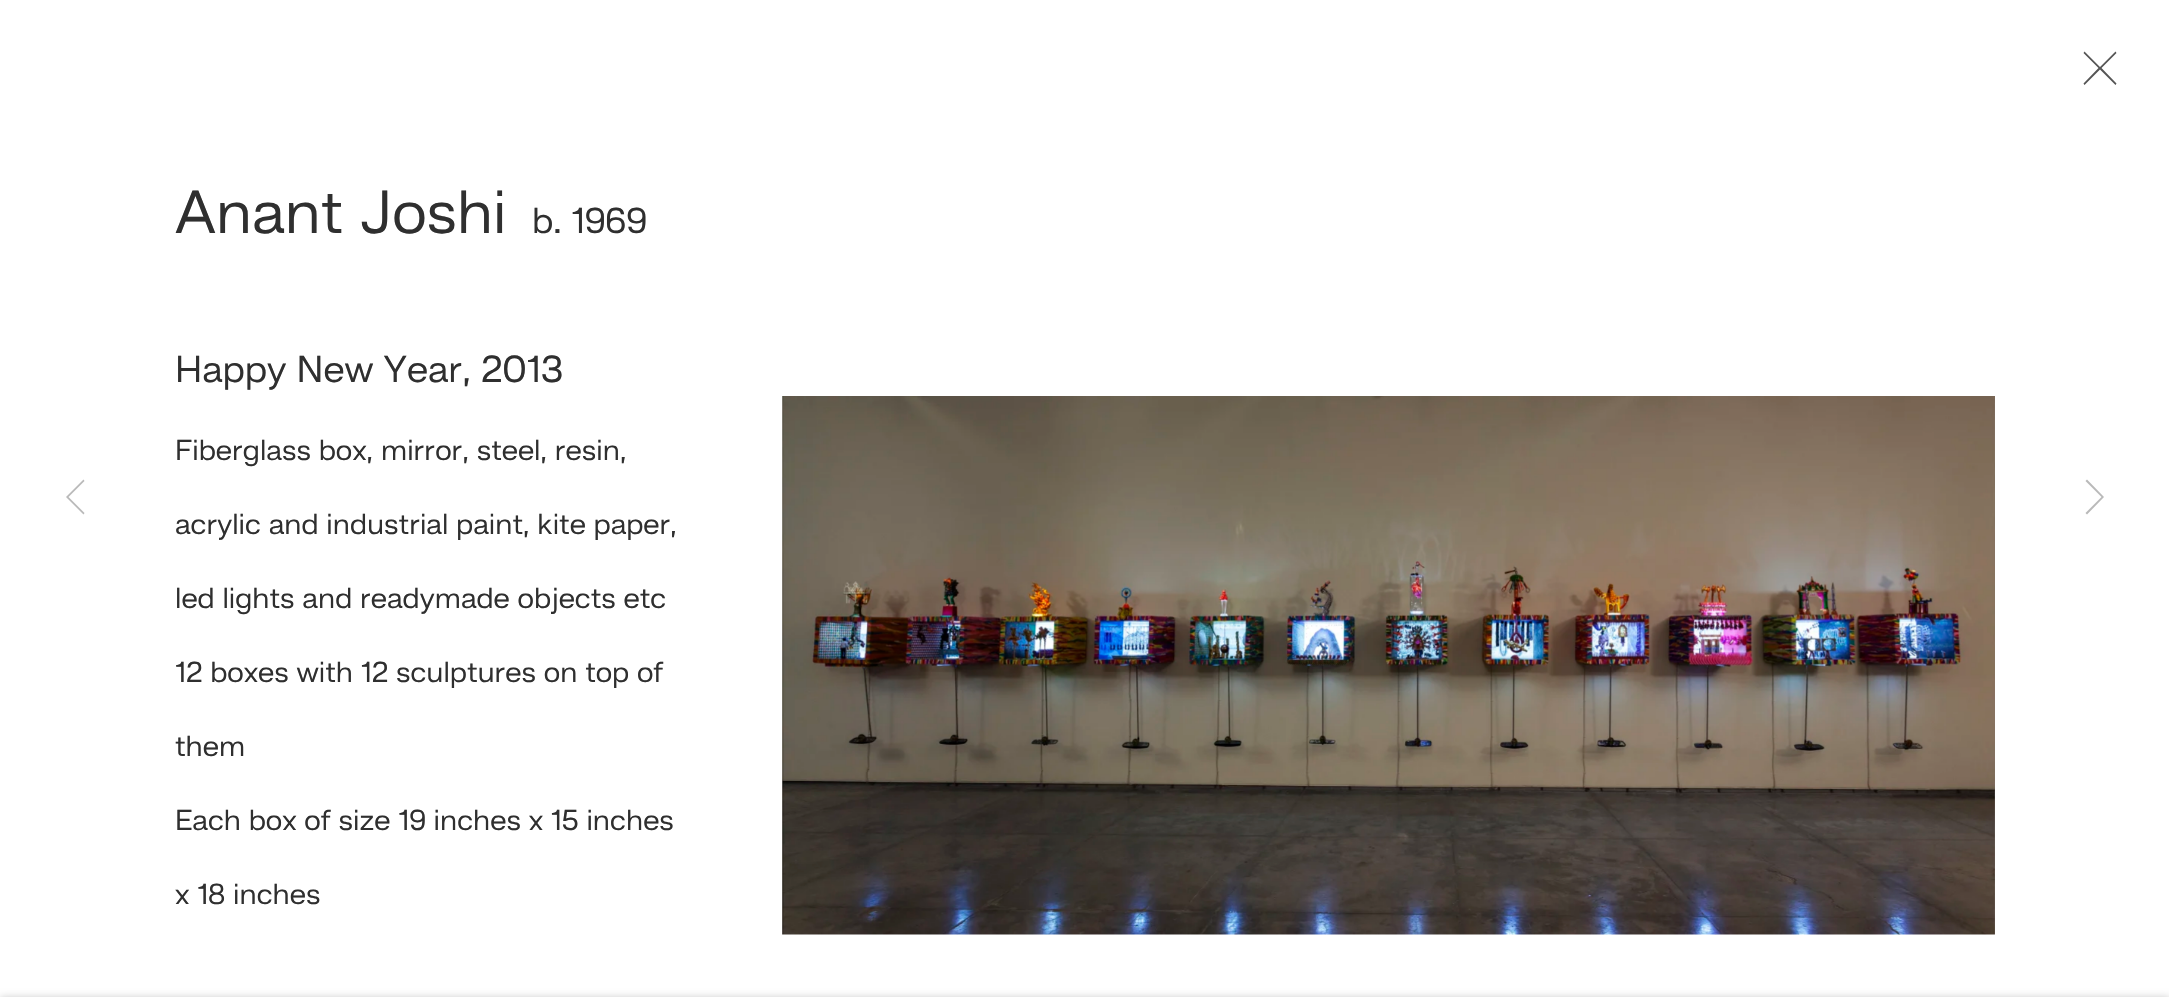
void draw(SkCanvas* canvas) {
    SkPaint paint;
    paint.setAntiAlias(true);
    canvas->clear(0xFFFFFFFF);
    paint.setColor(0xFF555555);
    canvas->drawPath(SkPathBuilder().moveTo(2116.5f, 53).lineTo(2115.5f, 51.5f).lineTo(2100, 67).lineTo(2084.5f, 51.5f).lineTo(2083.5f, 53).lineTo(2098.5f, 68).lineTo(2083.5f, 83.5f).lineTo(2084.5f, 85).lineTo(2100, 69.5f).lineTo(2115.5f, 85).lineTo(2116.5f, 83.5f).lineTo(2101.5f, 68).close().detach(), paint);
    SkFont font1(fontMgr->matchFamilyStyle("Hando", SkFontStyle::Normal()), 62.5f);
    font1.setSubpixel(true);
    paint.setColor(0xFF2F2F2F);
    canvas->drawString("Anant Joshi", 175, 233, font1, paint);
    SkFont font2(fontMgr->matchFamilyStyle("Hando", SkFontStyle::Normal()), 37);
    font2.setSubpixel(true);
    canvas->drawString("b. 1969", 532, 233, font2, paint);
    SkFont font3(fontMgr->matchFamilyStyle("Hando", SkFontStyle::Normal()), 38.75f);
    font3.setSubpixel(true);
    canvas->drawString("Happy New Year, 2013", 175, 382, font3, paint);
    SkFont font4(fontMgr->matchFamilyStyle("Hando", SkFontStyle::Normal()), 29.8f);
    font4.setSubpixel(true);
    canvas->drawString("Fiberglass box, mirror, steel, resin,", 175, 460, font4, paint);
    canvas->drawString("acrylic and industrial paint, kite paper,", 175, 534, font4, paint);
    canvas->drawString("led lights and readymade objects etc", 175, 608, font4, paint);
    canvas->drawString("12 boxes with 12 sculptures on top of", 175, 682, font4, paint);
    canvas->drawString("them", 175, 756, font4, paint);
    canvas->drawString("Each box of size 19 inches x 15 inches", 175, 830, font4, paint);
    canvas->drawString("x 18 inches", 175, 904, font4, paint);
    canvas->drawImageRect(SkImages::DeferredFromEncodedData(SkData::MakeFromFileName("img1.png")), SkRect::MakeXYWH(782, 396, 1213, 539), SkSamplingOptions());
    paint.setColor(0xFFB9B9B9);
    canvas->drawPath(SkPathBuilder().moveTo(67.5f, 498.5f).lineTo(83.5f, 514.5f).lineTo(84.5f, 513).lineTo(68.5f, 497).lineTo(84.5f, 481).lineTo(83.5f, 479.5f).lineTo(66, 497).close().detach(), paint);
    canvas->drawPath(SkPathBuilder().moveTo(2104, 497).lineTo(2087, 479.5f).lineTo(2085.5f, 481).lineTo(2101.5f, 497).lineTo(2085.5f, 513).lineTo(2087, 514.5f).close().detach(), paint);
    paint.setColor(0x3B000000);
    paint.setMaskFilter(SkMaskFilter::MakeBlur(kNormal_SkBlurStyle, 4.5f));
    canvas->drawRect(SkRect::MakeXYWH(0, 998, 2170, 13), paint);
    paint.setMaskFilter(nullptr);
}
